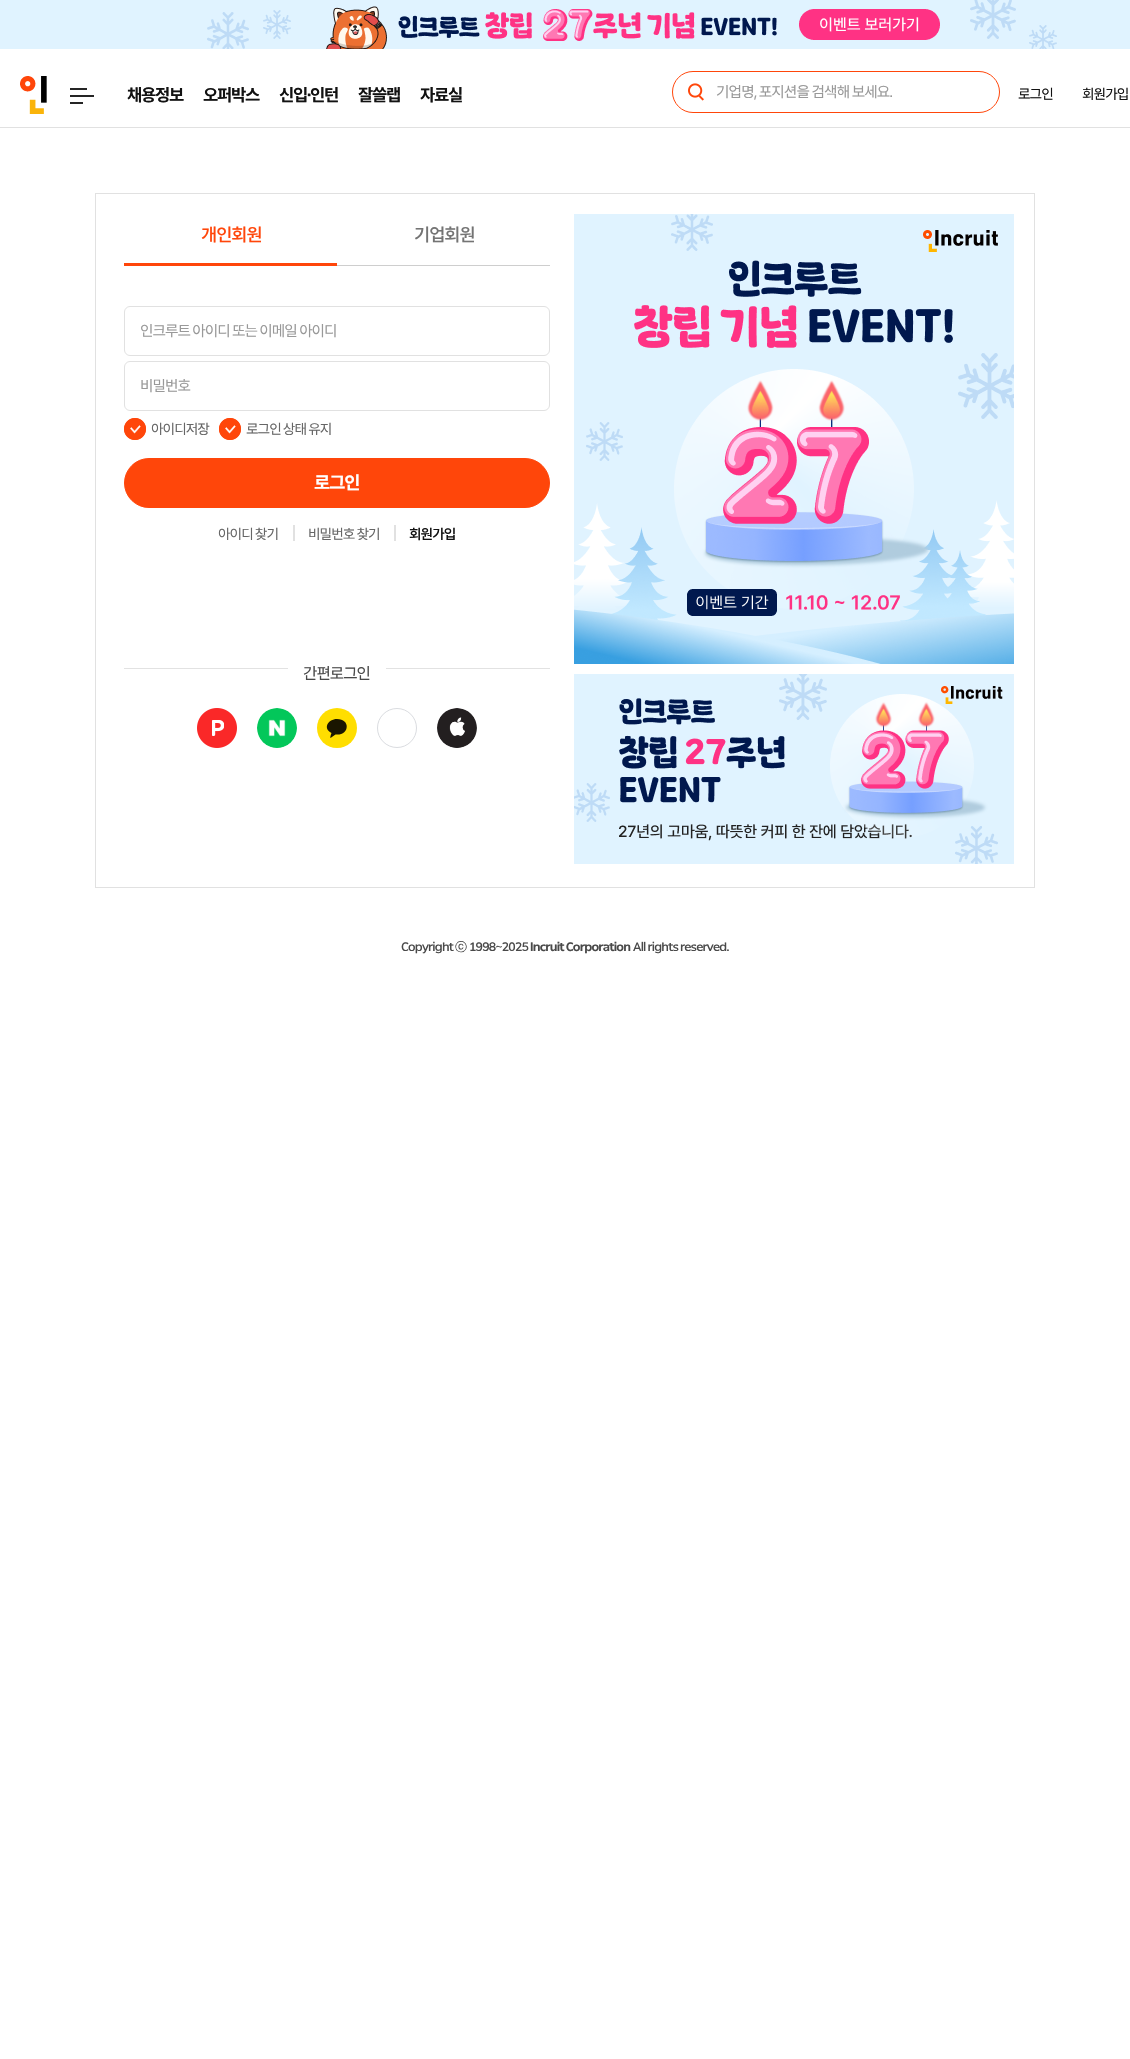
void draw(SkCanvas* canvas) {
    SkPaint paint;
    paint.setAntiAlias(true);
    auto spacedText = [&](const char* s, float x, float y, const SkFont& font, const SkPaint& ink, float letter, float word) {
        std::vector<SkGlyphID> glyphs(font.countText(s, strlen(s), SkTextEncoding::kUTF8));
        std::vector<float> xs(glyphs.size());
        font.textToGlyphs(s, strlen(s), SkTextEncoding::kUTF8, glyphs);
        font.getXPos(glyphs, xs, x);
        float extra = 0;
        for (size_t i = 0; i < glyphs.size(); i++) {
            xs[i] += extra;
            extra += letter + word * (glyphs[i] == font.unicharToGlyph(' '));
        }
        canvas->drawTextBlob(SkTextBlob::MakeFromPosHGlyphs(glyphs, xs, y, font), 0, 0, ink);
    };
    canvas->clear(0xFFFFFFFF);
    paint.setColor(0xFFE0F3FF);
    canvas->drawRect(SkRect::MakeXYWH(0, 0, 1130, 49), paint);
    canvas->drawImageRect(SkImages::DeferredFromEncodedData(SkData::MakeFromFileName("img1.png")), SkRect::MakeXYWH(207, 0, 850, 49), SkSamplingOptions());
    canvas->drawImageRect(SkImages::DeferredFromEncodedData(SkData::MakeFromFileName("img2.png")), SkRect::MakeXYWH(20, 76, 27, 38), SkSamplingOptions());
    paint.setStyle(SkPaint::kStroke_Style);
    paint.setStrokeWidth(1);
    paint.setColor(0xFFFF460A);
    canvas->drawRoundRect(SkRect::MakeXYWH(672.5f, 71.5f, 327, 41), 20.5f, 20.5f, paint);
    canvas->drawImageRect(SkImages::DeferredFromEncodedData(SkData::MakeFromFileName("img3.png")), SkRect::MakeXYWH(688, 83, 16, 18), SkSamplingOptions());
    SkFont font1(fontMgr->matchFamilyStyle("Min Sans", SkFontStyle::Normal()), 15);
    font1.setSubpixel(true);
    paint.setStyle(SkPaint::kFill_Style);
    paint.setColor(0xFF999999);
    spacedText("기업명, 포지션을 검색해 보세요.", 716, 97, font1, paint, -0.9f, 0);
    paint.setColor(0xFFE1E1E1);
    canvas->drawRect(SkRect::MakeXYWH(0, 127, 1130, 1), paint);
    paint.setColor(0xFF252525);
    canvas->drawRect(SkRect::MakeXYWH(70, 88, 17, 2), paint);
    canvas->drawRect(SkRect::MakeXYWH(70, 95, 24, 2), paint);
    canvas->drawRect(SkRect::MakeXYWH(70, 102, 13, 2), paint);
    SkFont font2(fontMgr->matchFamilyStyle("Min Sans", SkFontStyle::Bold()), 17);
    font2.setSubpixel(true);
    paint.setColor(0xFF121212);
    spacedText("채용정보", 127, 101, font2, paint, -1.25f, 0);
    spacedText("오퍼박스", 203, 101, font2, paint, -1.25f, 0);
    spacedText("신입·인턴", 279, 101, font2, paint, -1.25f, 0);
    spacedText("잘쓸랩", 358, 101, font2, paint, -1.25f, 0);
    spacedText("자료실", 420, 101, font2, paint, -1.25f, 0);
    SkFont font3(fontMgr->matchFamilyStyle("Min Sans", SkFontStyle::Normal()), 14);
    font3.setSubpixel(true);
    spacedText("로그인", 1018, 99, font3, paint, -1, 0);
    spacedText("회원가입", 1082, 99, font3, paint, -1, 0);
    paint.setColor(0xFFE1E1E1);
    canvas->drawRect(SkRect::MakeXYWH(95, 193, 940, 1), paint);
    canvas->drawRect(SkRect::MakeXYWH(1034, 193, 1, 695), paint);
    canvas->drawRect(SkRect::MakeXYWH(95, 887, 940, 1), paint);
    canvas->drawImageRect(SkImages::DeferredFromEncodedData(SkData::MakeFromFileName("img4.png")), SkRect::MakeXYWH(574, 214, 440, 450), SkSamplingOptions());
    canvas->drawImageRect(SkImages::DeferredFromEncodedData(SkData::MakeFromFileName("img5.png")), SkRect::MakeXYWH(574, 674, 440, 190), SkSamplingOptions());
    canvas->drawRect(SkRect::MakeXYWH(95, 193, 1, 695), paint);
    SkFont font4(fontMgr->matchFamilyStyle("Min Sans", SkFontStyle(500, SkFontStyle::kNormal_Width, SkFontStyle::kUpright_Slant)), 18);
    font4.setSubpixel(true);
    paint.setColor(0xFFFF460A);
    spacedText("개인회원", 201, 241, font4, paint, -1, 0);
    canvas->drawRect(SkRect::MakeXYWH(124, 263, 213, 3), paint);
    paint.setColor(0xFFCECECE);
    canvas->drawRect(SkRect::MakeXYWH(337, 265, 213, 1), paint);
    paint.setColor(0xFF747474);
    spacedText("기업회원", 414, 241, font4, paint, -1, 0);
    paint.setStyle(SkPaint::kStroke_Style);
    paint.setColor(0xFFE1E1E1);
    canvas->drawRoundRect(SkRect::MakeXYWH(124.5f, 306.5f, 425, 49), 5.5f, 5.5f, paint);
    paint.setStyle(SkPaint::kFill_Style);
    paint.setColor(0xFF999999);
    spacedText("인크루트 아이디 또는 이메일 아이디", 140, 336, font1, paint, -1, 0);
    paint.setStyle(SkPaint::kStroke_Style);
    paint.setColor(0xFFE1E1E1);
    canvas->drawRoundRect(SkRect::MakeXYWH(124.5f, 361.5f, 425, 49), 5.5f, 5.5f, paint);
    paint.setStyle(SkPaint::kFill_Style);
    paint.setColor(0xFF999999);
    spacedText("비밀번호", 140, 391, font1, paint, -1, 0);
    canvas->drawImageRect(SkImages::DeferredFromEncodedData(SkData::MakeFromFileName("img6.png")), SkRect::MakeXYWH(124, 418, 22, 22), SkSamplingOptions());
    paint.setColor(0xFF666666);
    spacedText("아이디저장", 151, 434, font3, paint, -1, 0);
    canvas->drawImageRect(SkImages::DeferredFromEncodedData(SkData::MakeFromFileName("img6.png")), SkRect::MakeXYWH(219, 418, 22, 22), SkSamplingOptions());
    spacedText("로그인 상태 유지", 246, 434, font3, paint, -1, 0);
    paint.setColor(0xFFFF460A);
    canvas->drawRoundRect(SkRect::MakeXYWH(124.5f, 458.5f, 425, 49), 24.5f, 24.5f, paint);
    paint.setStyle(SkPaint::kStroke_Style);
    canvas->drawRoundRect(SkRect::MakeXYWH(124.5f, 458.5f, 425, 49), 24.5f, 24.5f, paint);
    SkFont font5(fontMgr->matchFamilyStyle("Min Sans", SkFontStyle::Bold()), 18);
    font5.setSubpixel(true);
    paint.setStyle(SkPaint::kFill_Style);
    paint.setColor(0xFFFFFFFF);
    spacedText("로그인", 314, 489, font5, paint, -1, 0);
    paint.setColor(0xFF666666);
    spacedText("아이디 찾기", 218, 539, font3, paint, -1, 0);
    paint.setColor(0xFFE1E1E1);
    canvas->drawRect(SkRect::MakeXYWH(293, 525, 2, 16), paint);
    paint.setColor(0xFF666666);
    spacedText("비밀번호 찾기", 308, 539, font3, paint, -1, 0);
    paint.setColor(0xFFE1E1E1);
    canvas->drawRect(SkRect::MakeXYWH(394, 525, 2, 16), paint);
    SkFont font6(fontMgr->matchFamilyStyle("Min Sans", SkFontStyle(500, SkFontStyle::kNormal_Width, SkFontStyle::kUpright_Slant)), 14);
    font6.setSubpixel(true);
    paint.setColor(0xFF121212);
    spacedText("회원가입", 409, 539, font6, paint, -1, 0);
    paint.setColor(0xFFE2E2E2);
    canvas->drawRect(SkRect::MakeXYWH(124, 668, 426, 1), paint);
    paint.setColor(0xFFFFFFFF);
    canvas->drawRect(SkRect::MakeXYWH(288, 668, 98, 1), paint);
    SkFont font7(fontMgr->matchFamilyStyle("Min Sans", SkFontStyle::Normal()), 16);
    font7.setSubpixel(true);
    paint.setColor(0xFF494949);
    spacedText("간편로그인", 303, 679, font7, paint, -1, 0);
    canvas->drawImageRect(SkImages::DeferredFromEncodedData(SkData::MakeFromFileName("img7.png")), SkRect::MakeXYWH(197, 708, 40, 40), SkSamplingOptions());
    canvas->drawImageRect(SkImages::DeferredFromEncodedData(SkData::MakeFromFileName("img8.png")), SkRect::MakeXYWH(257, 708, 40, 40), SkSamplingOptions());
    paint.setColor(0xFFFFDE00);
    canvas->drawCircle(337, 728, 20, paint);
    paint.setColor(0xFF1A1600);
    canvas->drawPath(SkPathBuilder().moveTo(337, 719).cubicTo(328, 719, 322.5f, 728.5f, 331.5f, 733).cubicTo(331, 734, 330, 737.5f, 330.5f, 738).lineTo(335.5f, 734.5f).cubicTo(349.5f, 736, 351, 719, 337, 719).detach(), paint);
    paint.setStyle(SkPaint::kStroke_Style);
    paint.setColor(0xFFDADCE0);
    canvas->drawCircle(397, 728, 19.5f, paint);
    canvas->drawImageRect(SkImages::DeferredFromEncodedData(SkData::MakeFromFileName("img9.png")), SkRect::MakeXYWH(437, 708, 40, 40), SkSamplingOptions());
    SkFont font8(fontMgr->matchFamilyStyle("Min Sans", SkFontStyle(500, SkFontStyle::kNormal_Width, SkFontStyle::kUpright_Slant)), 12);
    font8.setSubpixel(true);
    paint.setStyle(SkPaint::kFill_Style);
    paint.setColor(0xFF494949);
    spacedText("Copyright", 401, 951, font8, paint, -0.75f, 0);
    SkFont font9(fontMgr->matchFamilyStyle("WenQuanYi Zen Hei", SkFontStyle(500, SkFontStyle::kNormal_Width, SkFontStyle::kUpright_Slant)), 12);
    font9.setSubpixel(true);
    spacedText("ⓒ", 455, 951, font9, paint, -0.75f, 0);
    spacedText("1998~2025", 469, 951, font8, paint, -0.75f, 0);
    SkFont font10(fontMgr->matchFamilyStyle("Min Sans", SkFontStyle::Bold()), 12);
    font10.setSubpixel(true);
    spacedText("Incruit Corporation", 530, 951, font10, paint, -0.75f, 0);
    spacedText("All rights reserved.", 633, 951, font8, paint, -0.75f, 0);
}
